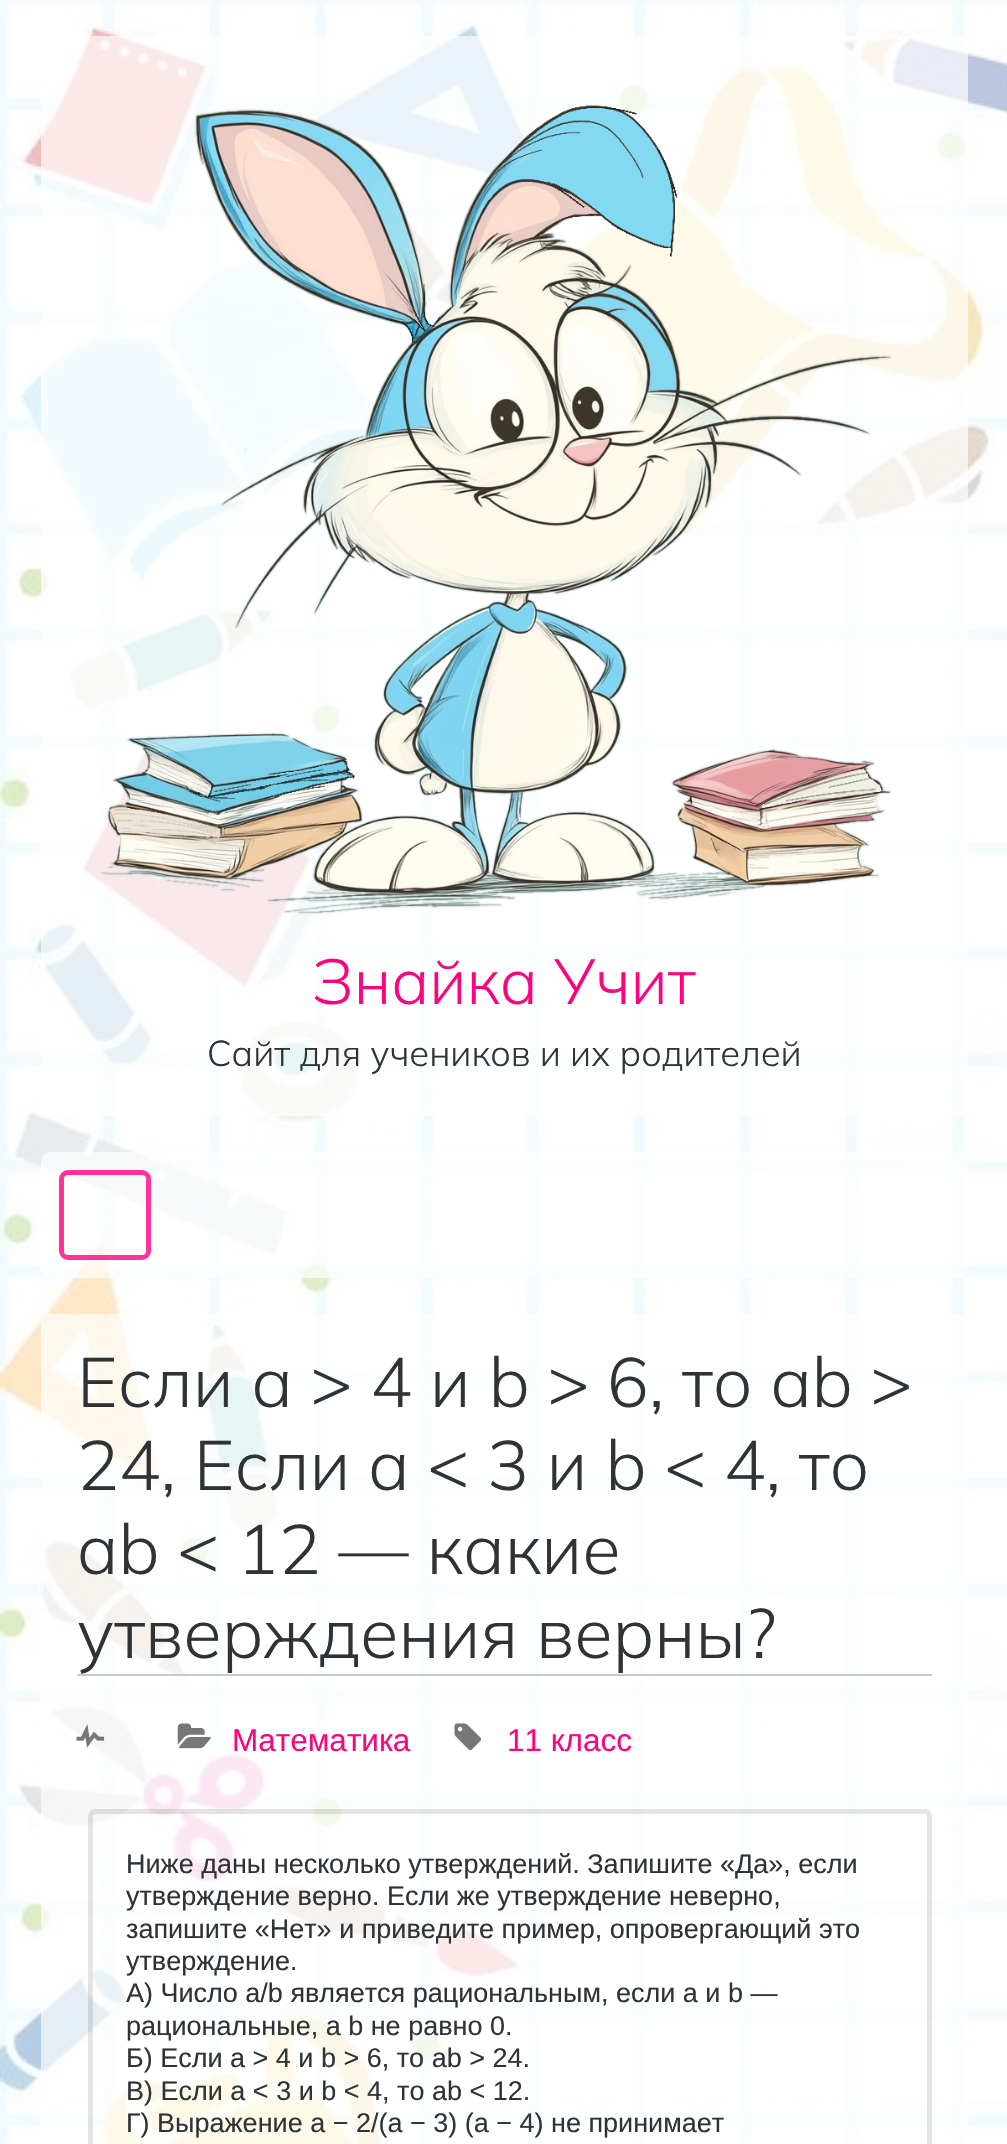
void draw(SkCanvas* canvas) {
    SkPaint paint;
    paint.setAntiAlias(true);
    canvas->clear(0xFFFFFFFF);
    canvas->drawImageRect(SkImages::DeferredFromEncodedData(SkData::MakeFromFileName("img1.png")), SkRect::MakeXYWH(0, 0, 1007, 2144), SkSamplingOptions());
    paint.setColor(0xA6FFFFFF);
    canvas->drawRoundRect(SkRect::MakeXYWH(41, 36, 927, 1080), 9, 9, paint);
    canvas->drawImageRect(SkImages::DeferredFromEncodedData(SkData::MakeFromFileName("img2.png")), SkRect::MakeXYWH(100, 105, 792, 810), SkSamplingOptions());
    SkFont font1(fontMgr->matchFamilyStyle("Mulish", SkFontStyle(300, SkFontStyle::kNormal_Width, SkFontStyle::kUpright_Slant)), 63.5f);
    font1.setSubpixel(true);
    paint.setColor(0xFFFC0380);
    canvas->drawString("Знайка Учит", 312, 1004, font1, paint);
    SkFont font2(fontMgr->matchFamilyStyle("Mulish", SkFontStyle(300, SkFontStyle::kNormal_Width, SkFontStyle::kUpright_Slant)), 36);
    font2.setSubpixel(true);
    paint.setColor(0xFF303336);
    canvas->drawString("Сайт для учеников и их родителей", 207, 1066, font2, paint);
    paint.setColor(0xA6FFFFFF);
    canvas->drawRoundRect(SkRect::MakeXYWH(41, 1152, 927, 126), 9, 9, paint);
    paint.setStyle(SkPaint::kStroke_Style);
    paint.setStrokeWidth(5);
    paint.setColor(0xFFFF3399);
    canvas->drawRoundRect(SkRect::MakeXYWH(61.5f, 1172.5f, 87, 85), 6.5f, 6.5f, paint);
    paint.setStyle(SkPaint::kFill_Style);
    paint.setColor(0xA6FFFFFF);
    canvas->drawRoundRect(SkRect::MakeXYWH(41, 1314, 927, 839), 9, 9, paint);
    paint.setColor(0xFFC6C9CC);
    canvas->drawRect(SkRect::MakeXYWH(77, 1674, 855, 2), paint);
    SkFont font3(fontMgr->matchFamilyStyle("Mulish", SkFontStyle(300, SkFontStyle::kNormal_Width, SkFontStyle::kUpright_Slant)), 69.75f);
    font3.setSubpixel(true);
    paint.setColor(0xFF303336);
    canvas->drawString("Если a > 4 и b > 6, то ab >", 77, 1407, font3, paint);
    canvas->drawString("24, Если a < 3 и b < 4, то", 77, 1490, font3, paint);
    canvas->drawString("ab < 12 — какие", 77, 1574, font3, paint);
    canvas->drawString("утверждения верны?", 77, 1658, font3, paint);
    canvas->drawImageRect(SkImages::DeferredFromEncodedData(SkData::MakeFromFileName("img3.png")), SkRect::MakeXYWH(76, 1724, 29, 24), SkSamplingOptions());
    canvas->drawImageRect(SkImages::DeferredFromEncodedData(SkData::MakeFromFileName("img4.png")), SkRect::MakeXYWH(177, 1723, 34, 26), SkSamplingOptions());
    SkFont font4(fontMgr->matchFamilyStyle("Liberation Sans", SkFontStyle::Normal()), 31.5f);
    font4.setSubpixel(true);
    paint.setColor(0xFFFC0380);
    canvas->drawString("Математика", 232, 1751, font4, paint);
    canvas->drawImageRect(SkImages::DeferredFromEncodedData(SkData::MakeFromFileName("img5.png")), SkRect::MakeXYWH(454, 1723, 28, 28), SkSamplingOptions());
    canvas->drawString("11 класс", 507, 1751, font4, paint);
    paint.setStyle(SkPaint::kStroke_Style);
    paint.setColor(0x1A000000);
    canvas->drawRoundRect(SkRect::MakeXYWH(90.5f, 1811.5f, 839, 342), 4.5f, 4.5f, paint);
    SkFont font5(fontMgr->matchFamilyStyle("Liberation Sans", SkFontStyle::Normal()), 27);
    font5.setSubpixel(true);
    paint.setStyle(SkPaint::kFill_Style);
    paint.setColor(0xFF303336);
    canvas->drawString("Ниже даны несколько утверждений. Запишите «Да», если", 126, 1873, font5, paint);
    canvas->drawString("утверждение верно. Если же утверждение неверно,", 126, 1905, font5, paint);
    canvas->drawString("запишите «Нет» и приведите пример, опровергающий это", 126, 1938, font5, paint);
    canvas->drawString("утверждение.", 126, 1970, font5, paint);
    canvas->drawString("А) Число a/b является рациональным, если a и b —", 126, 2002, font5, paint);
    canvas->drawString("рациональные, а b не равно 0.", 126, 2035, font5, paint);
    canvas->drawString("Б) Если a > 4 и b > 6, то ab > 24.", 126, 2067, font5, paint);
    canvas->drawString("В) Если a < 3 и b < 4, то ab < 12.", 126, 2100, font5, paint);
    canvas->drawString("Г) Выражение a − 2/(a − 3) (a − 4) не принимает", 126, 2132, font5, paint);
}
